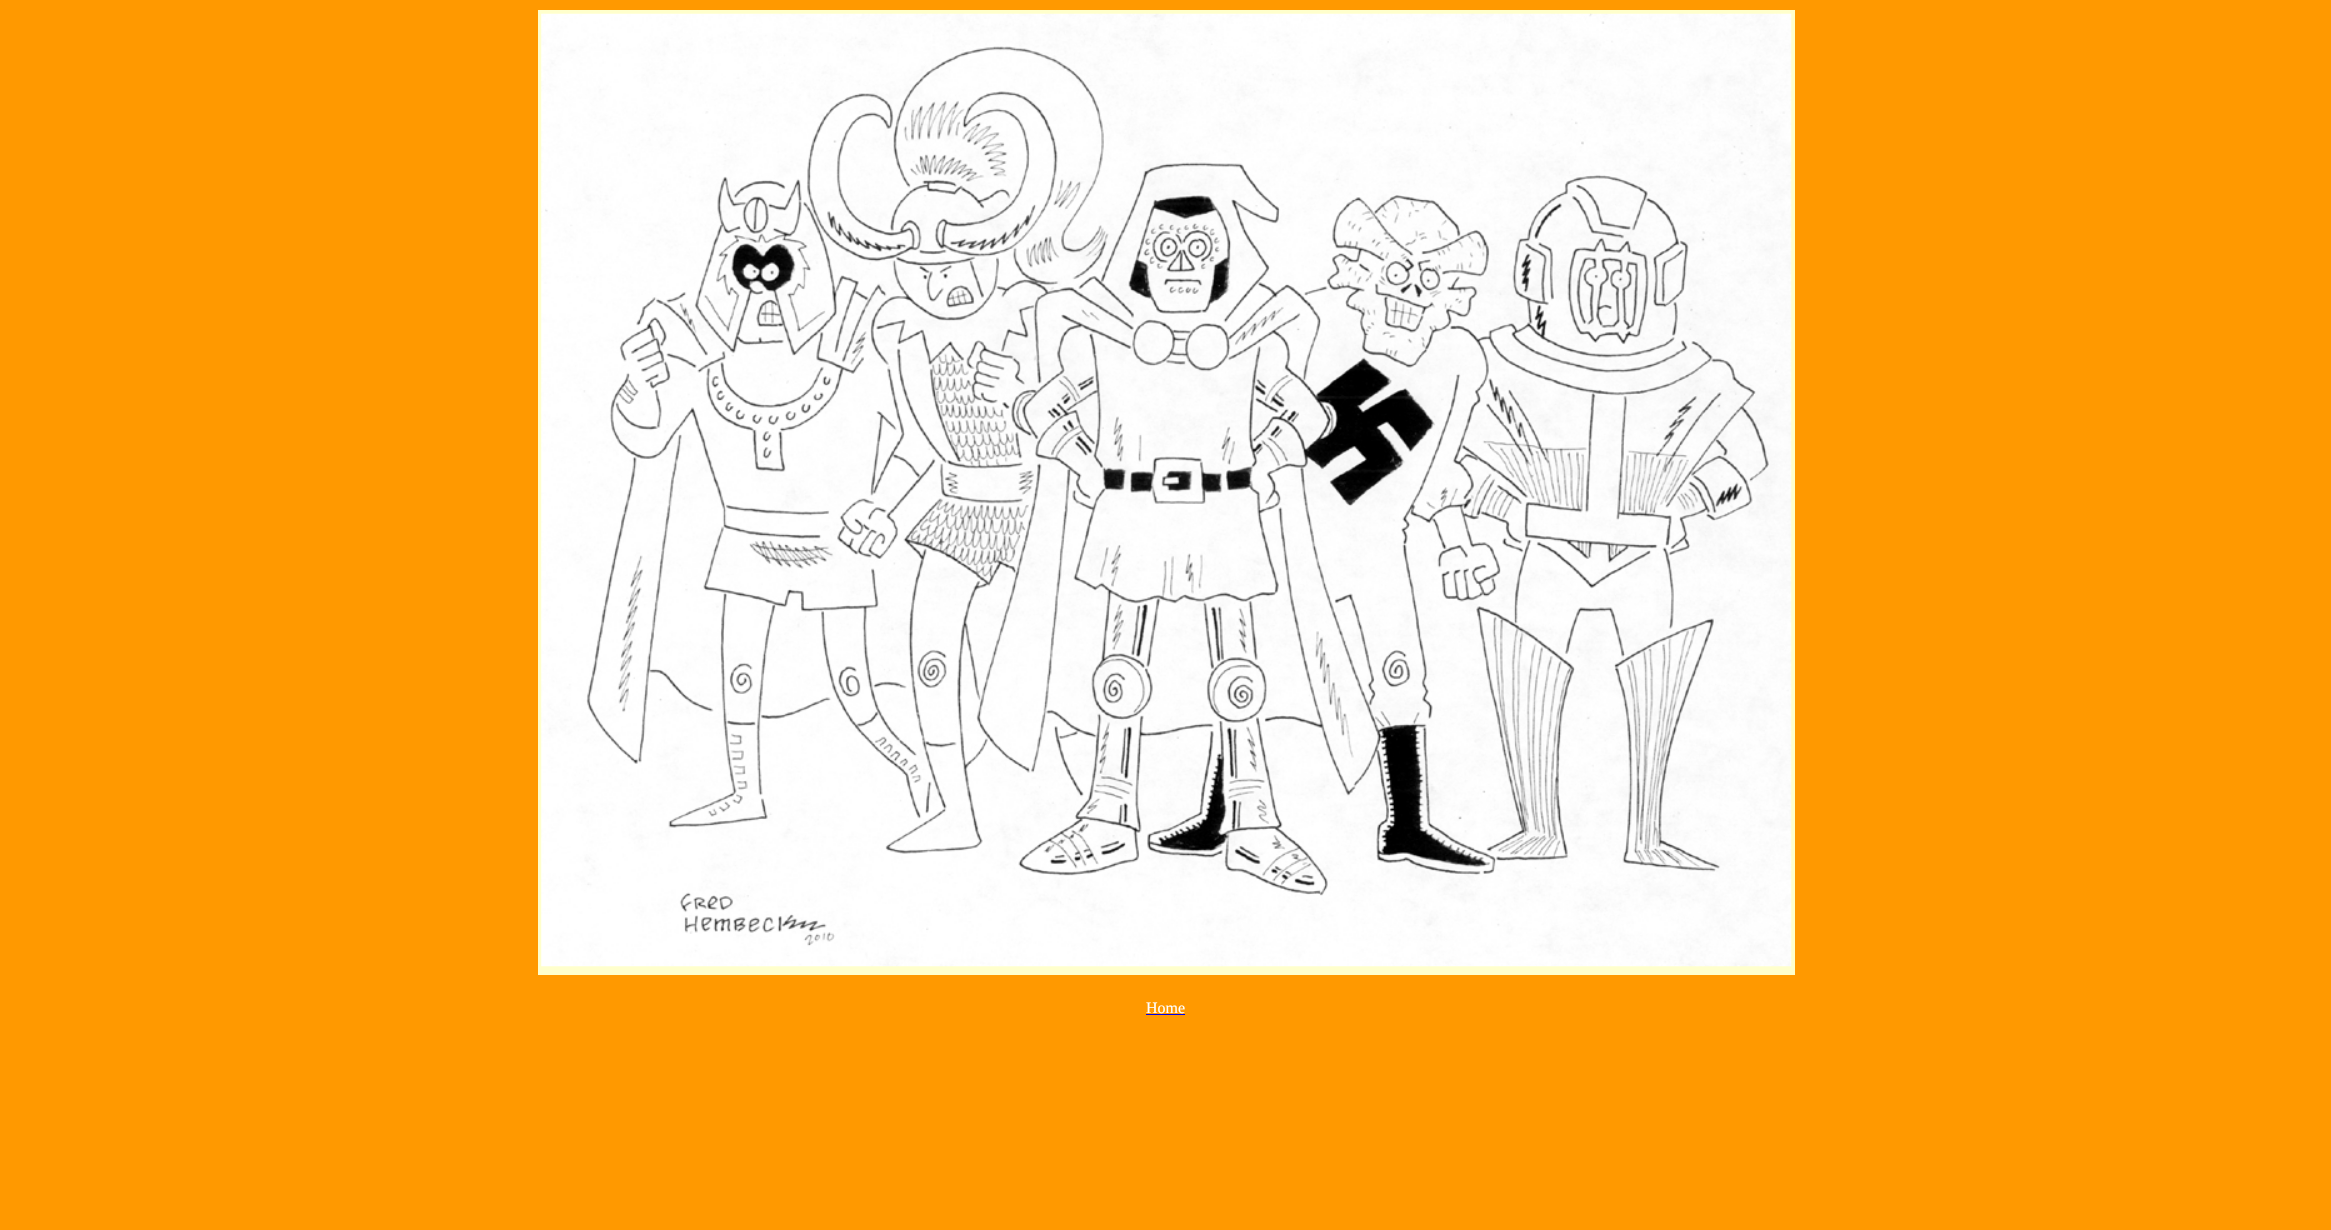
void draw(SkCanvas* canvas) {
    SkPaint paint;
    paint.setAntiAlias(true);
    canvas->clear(0xFFFF9900);
    paint.setColor(0xFFFFFFCC);
    canvas->drawRect(SkRect::MakeXYWH(538, 10, 1257, 965), paint);
    canvas->drawImageRect(SkImages::DeferredFromEncodedData(SkData::MakeFromFileName("img1.png")), SkRect::MakeXYWH(541, 13, 1251, 954), SkSamplingOptions());
    SkFont font1(fontMgr->matchFamilyStyle("Liberation Serif", SkFontStyle::Normal()), 16);
    font1.setSubpixel(true);
    paint.setColor(0xFFFFFFFF);
    canvas->drawString("Home", 1146, 1013, font1, paint);
    paint.setColor(0xFF0000EE);
    canvas->drawRect(SkRect::MakeXYWH(1146, 1014, 39, 1), paint);
}
